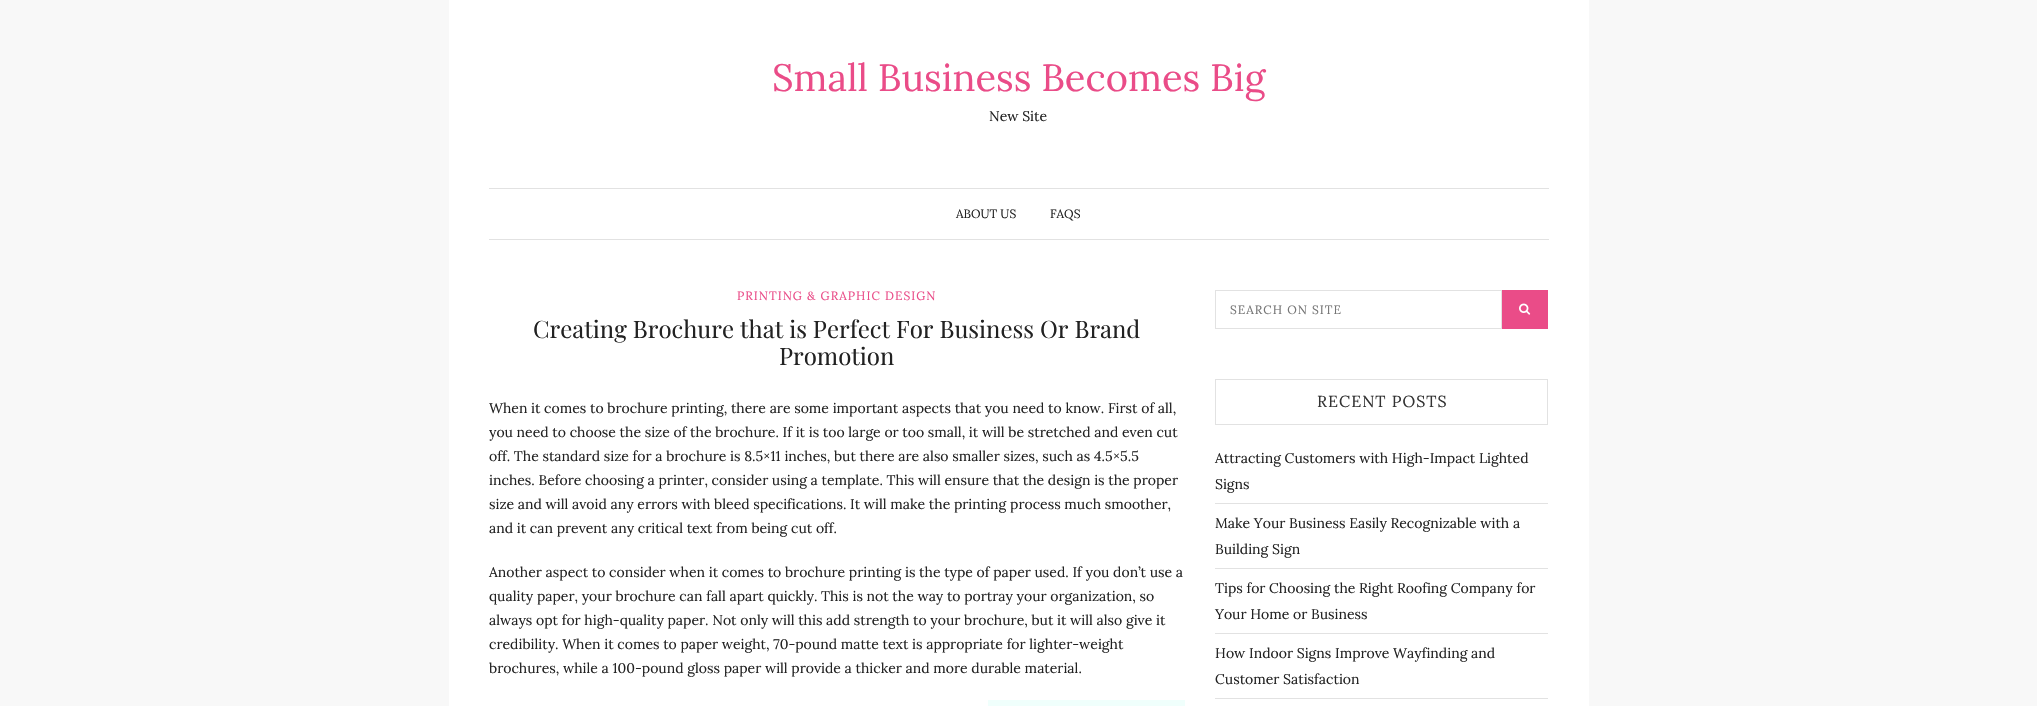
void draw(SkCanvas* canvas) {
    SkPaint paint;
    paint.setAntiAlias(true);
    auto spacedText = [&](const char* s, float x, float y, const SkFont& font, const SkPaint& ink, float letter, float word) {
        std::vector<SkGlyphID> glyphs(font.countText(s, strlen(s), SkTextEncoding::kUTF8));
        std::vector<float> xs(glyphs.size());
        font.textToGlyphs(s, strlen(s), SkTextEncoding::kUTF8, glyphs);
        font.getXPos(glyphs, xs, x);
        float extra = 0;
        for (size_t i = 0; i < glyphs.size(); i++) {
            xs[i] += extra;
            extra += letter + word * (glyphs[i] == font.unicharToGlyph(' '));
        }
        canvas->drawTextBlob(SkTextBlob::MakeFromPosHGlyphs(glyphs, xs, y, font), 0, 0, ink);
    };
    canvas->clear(0xFFF8F8F8);
    paint.setColor(0xFFFFFFFF);
    canvas->drawRect(SkRect::MakeXYWH(449, 0, 1140, 706), paint);
    SkFont font1(fontMgr->matchFamilyStyle("Lora", SkFontStyle::Normal()), 38);
    font1.setSubpixel(true);
    paint.setColor(0xFFEA4C88);
    canvas->drawString("Small Business Becomes Big", 772, 91, font1, paint);
    SkFont font2(fontMgr->matchFamilyStyle("Lora", SkFontStyle::Normal()), 14);
    font2.setSubpixel(true);
    paint.setColor(0xFF222222);
    canvas->drawString("New Site", 989, 121, font2, paint);
    paint.setColor(0xFFE2E2E2);
    canvas->drawRect(SkRect::MakeXYWH(489, 188, 1060, 1), paint);
    canvas->drawRect(SkRect::MakeXYWH(489, 239, 1060, 1), paint);
    SkFont font3(fontMgr->matchFamilyStyle("Lora", SkFontStyle::Normal()), 12);
    font3.setSubpixel(true);
    paint.setColor(0xFF222222);
    canvas->drawString("ABOUT US", 956, 218, font3, paint);
    canvas->drawString("FAQS", 1050, 218, font3, paint);
    paint.setColor(0xFFEA4C88);
    spacedText("PRINTING & GRAPHIC DESIGN", 737, 300, font3, paint, 1, 0);
    SkFont font4(fontMgr->matchFamilyStyle("Playfair Display", SkFontStyle::Normal()), 24);
    font4.setSubpixel(true);
    paint.setColor(0xFF222222);
    canvas->drawString("Creating Brochure that is Perfect For Business Or Brand", 533, 338, font4, paint);
    canvas->drawString("Promotion", 779, 365, font4, paint);
    canvas->drawString("When it comes to brochure printing, there are some important aspects that you need to know. First of all,", 489, 413, font2, paint);
    canvas->drawString("you need to choose the size of the brochure. If it is too large or too small, it will be stretched and even cut", 489, 437, font2, paint);
    canvas->drawString("off. The standard size for a brochure is 8.5×11 inches, but there are also smaller sizes, such as 4.5×5.5", 489, 461, font2, paint);
    canvas->drawString("inches. Before choosing a printer, consider using a template. This will ensure that the design is the proper", 489, 485, font2, paint);
    canvas->drawString("size and will avoid any errors with bleed specifications. It will make the printing process much smoother,", 489, 509, font2, paint);
    canvas->drawString("and it can prevent any critical text from being cut off.", 489, 533, font2, paint);
    canvas->drawString("Another aspect to consider when it comes to brochure printing is the type of paper used. If you don’t use a", 489, 577, font2, paint);
    canvas->drawString("quality paper, your brochure can fall apart quickly. This is not the way to portray your organization, so", 489, 601, font2, paint);
    canvas->drawString("always opt for high-quality paper. Not only will this add strength to your brochure, but it will also give it", 489, 625, font2, paint);
    canvas->drawString("credibility. When it comes to paper weight, 70-pound matte text is appropriate for lighter-weight", 489, 649, font2, paint);
    canvas->drawString("brochures, while a 100-pound gloss paper will provide a thicker and more durable material.", 489, 673, font2, paint);
    paint.setColor(0xFFF0FFFC);
    canvas->drawRect(SkRect::MakeXYWH(988, 700, 197, 6), paint);
    paint.setStyle(SkPaint::kStroke_Style);
    paint.setStrokeWidth(1);
    paint.setColor(0xFFE2E2E2);
    canvas->drawRect(SkRect::MakeXYWH(1215.5f, 290.5f, 286, 38), paint);
    paint.setStyle(SkPaint::kFill_Style);
    paint.setColor(0xFF757575);
    spacedText("SEARCH ON SITE", 1230, 314, font3, paint, 1, 0);
    paint.setColor(0xFFEA4C88);
    canvas->drawRect(SkRect::MakeXYWH(1502, 290, 46, 39), paint);
    canvas->drawImageRect(SkImages::DeferredFromEncodedData(SkData::MakeFromFileName("img1.png")), SkRect::MakeXYWH(1519, 303, 12, 12), SkSamplingOptions());
    paint.setStyle(SkPaint::kStroke_Style);
    paint.setColor(0xFFE2E2E2);
    canvas->drawRect(SkRect::MakeXYWH(1215.5f, 379.5f, 332, 45), paint);
    SkFont font5(fontMgr->matchFamilyStyle("Lora", SkFontStyle::Normal()), 16);
    font5.setSubpixel(true);
    paint.setStyle(SkPaint::kFill_Style);
    paint.setColor(0xFF333333);
    spacedText("RECENT POSTS", 1317, 407, font5, paint, 1, 0);
    paint.setColor(0xFFE2E2E2);
    canvas->drawRect(SkRect::MakeXYWH(1215, 503, 333, 1), paint);
    paint.setColor(0xFF222222);
    canvas->drawString("Attracting Customers with High-Impact Lighted", 1215, 463, font2, paint);
    canvas->drawString("Signs", 1215, 489, font2, paint);
    paint.setColor(0xFFE2E2E2);
    canvas->drawRect(SkRect::MakeXYWH(1215, 568, 333, 1), paint);
    paint.setColor(0xFF222222);
    canvas->drawString("Make Your Business Easily Recognizable with a", 1215, 528, font2, paint);
    canvas->drawString("Building Sign", 1215, 554, font2, paint);
    paint.setColor(0xFFE2E2E2);
    canvas->drawRect(SkRect::MakeXYWH(1215, 633, 333, 1), paint);
    paint.setColor(0xFF222222);
    canvas->drawString("Tips for Choosing the Right Roofing Company for", 1215, 593, font2, paint);
    canvas->drawString("Your Home or Business", 1215, 619, font2, paint);
    paint.setColor(0xFFE2E2E2);
    canvas->drawRect(SkRect::MakeXYWH(1215, 698, 333, 1), paint);
    paint.setColor(0xFF222222);
    canvas->drawString("How Indoor Signs Improve Wayfinding and", 1215, 658, font2, paint);
    canvas->drawString("Customer Satisfaction", 1215, 684, font2, paint);
}
